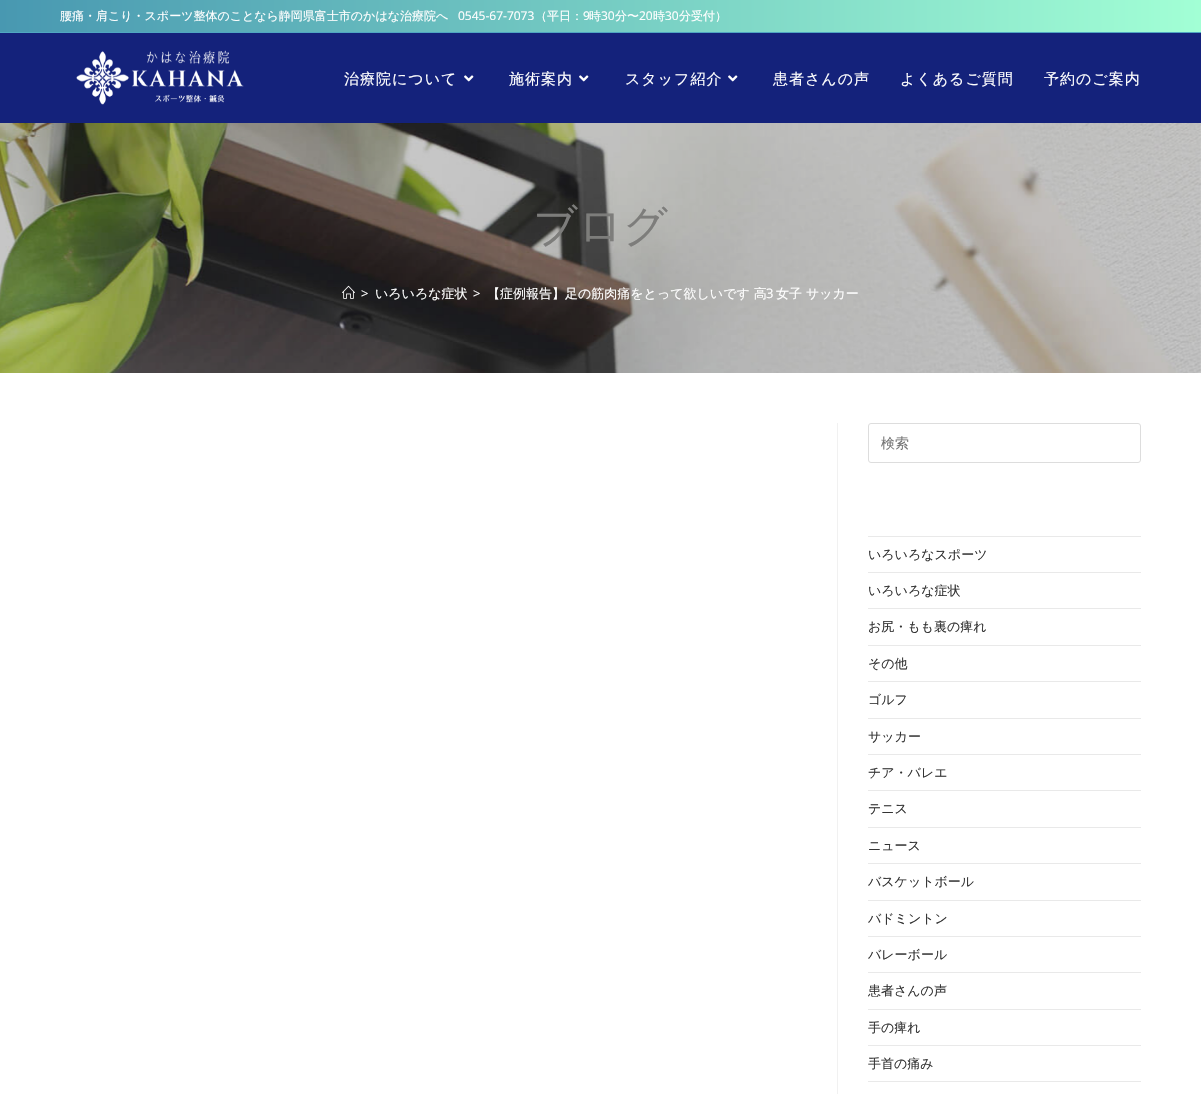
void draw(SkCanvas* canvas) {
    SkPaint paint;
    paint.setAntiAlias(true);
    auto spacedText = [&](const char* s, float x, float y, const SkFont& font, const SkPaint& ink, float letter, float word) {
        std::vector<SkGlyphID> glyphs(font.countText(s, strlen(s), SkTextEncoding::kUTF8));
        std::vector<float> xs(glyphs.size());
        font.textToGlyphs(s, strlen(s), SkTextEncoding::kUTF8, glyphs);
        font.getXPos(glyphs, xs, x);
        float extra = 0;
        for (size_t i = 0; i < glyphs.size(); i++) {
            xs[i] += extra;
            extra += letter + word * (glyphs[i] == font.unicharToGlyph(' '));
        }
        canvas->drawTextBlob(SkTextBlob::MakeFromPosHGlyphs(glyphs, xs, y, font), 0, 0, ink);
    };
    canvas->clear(0xFFFFFFFF);
    {
        const SkColor colors[] = {0xFFA2FFD5, 0xFF4898B1};
        const float stops[] = {0, 1};
        const SkPoint ends[] = {{1201, 16}, {0, 16}};
        paint.setShader(SkGradientShader::MakeLinear(ends, colors, stops, 2, SkTileMode::kClamp));
        paint.setAlpha(255);
    }
    canvas->drawRect(SkRect::MakeXYWH(0, 0, 1201, 32), paint);
    paint.setShader(nullptr);
    paint.setColor(0xFF50A7C2);
    canvas->drawRect(SkRect::MakeXYWH(0, 32, 1201, 1), paint);
    SkFont font1(fontMgr->matchFamilyStyle("WenQuanYi Zen Hei", SkFontStyle(500, SkFontStyle::kNormal_Width, SkFontStyle::kUpright_Slant)), 12);
    font1.setSubpixel(true);
    paint.setColor(0xFFFFFFFF);
    canvas->drawString("腰痛・肩こり・スポーツ整体のことなら静岡県富士市のかはな治療院へ", 60, 20, font1, paint);
    SkFont font2(fontMgr->matchFamilyStyle("Open Sans", SkFontStyle::Normal()), 12);
    font2.setSubpixel(true);
    canvas->drawString("0545-67-7073", 458, 20, font2, paint);
    canvas->drawString("（平日：", 535, 20, font1, paint);
    canvas->drawString("9", 583, 20, font2, paint);
    canvas->drawString("時", 589, 20, font1, paint);
    canvas->drawString("30", 601, 20, font2, paint);
    canvas->drawString("分〜", 615, 20, font1, paint);
    canvas->drawString("20", 639, 20, font2, paint);
    canvas->drawString("時", 653, 20, font1, paint);
    canvas->drawString("30", 665, 20, font2, paint);
    canvas->drawString("分受付）", 679, 20, font1, paint);
    paint.setColor(0xFF14227B);
    canvas->drawRect(SkRect::MakeXYWH(0, 33, 1201, 90), paint);
    canvas->drawImageRect(SkImages::DeferredFromEncodedData(SkData::MakeFromFileName("img1.png")), SkRect::MakeXYWH(76, 50, 168, 55), SkSamplingOptions());
    SkFont font3(fontMgr->matchFamilyStyle("WenQuanYi Zen Hei", SkFontStyle(500, SkFontStyle::kNormal_Width, SkFontStyle::kUpright_Slant)), 15);
    font3.setSubpixel(true);
    paint.setColor(0xFFFFFFFF);
    spacedText("治療院について", 344, 84, font3, paint, 1, 0);
    canvas->drawImageRect(SkImages::DeferredFromEncodedData(SkData::MakeFromFileName("img2.png")), SkRect::MakeXYWH(464, 75, 10, 7), SkSamplingOptions());
    spacedText("施術案内", 509, 84, font3, paint, 1, 0);
    canvas->drawImageRect(SkImages::DeferredFromEncodedData(SkData::MakeFromFileName("img2.png")), SkRect::MakeXYWH(579, 75, 10, 7), SkSamplingOptions());
    spacedText("スタッフ紹介", 625, 84, font3, paint, 1, 0);
    canvas->drawImageRect(SkImages::DeferredFromEncodedData(SkData::MakeFromFileName("img2.png")), SkRect::MakeXYWH(728, 75, 10, 7), SkSamplingOptions());
    spacedText("患者さんの声", 773, 84, font3, paint, 1, 0);
    spacedText("よくあるご質問", 900, 84, font3, paint, 1, 0);
    spacedText("予約のご案内", 1044, 84, font3, paint, 1, 0);
    canvas->drawImageRect(SkImages::DeferredFromEncodedData(SkData::MakeFromFileName("img3.png")), SkRect::MakeXYWH(0, 123, 1201, 250), SkSamplingOptions());
    SkFont font4(fontMgr->matchFamilyStyle("WenQuanYi Zen Hei", SkFontStyle(500, SkFontStyle::kNormal_Width, SkFontStyle::kUpright_Slant)), 44);
    font4.setSubpixel(true);
    paint.setColor(0xFF7D7D7B);
    canvas->drawString("ブログ", 533, 241, font4, paint);
    canvas->drawImageRect(SkImages::DeferredFromEncodedData(SkData::MakeFromFileName("img4.png")), SkRect::MakeXYWH(342, 285, 13, 14), SkSamplingOptions());
    SkFont font5(fontMgr->matchFamilyStyle("Open Sans", SkFontStyle::Normal()), 13);
    font5.setSubpixel(true);
    paint.setColor(0xFFFFFFFF);
    canvas->drawString(">", 361, 298, font5, paint);
    SkFont font6(fontMgr->matchFamilyStyle("WenQuanYi Zen Hei", SkFontStyle(500, SkFontStyle::kNormal_Width, SkFontStyle::kUpright_Slant)), 13);
    font6.setSubpixel(true);
    canvas->drawString("いろいろな症状", 375, 298, font6, paint);
    canvas->drawString(">", 473, 298, font5, paint);
    canvas->drawString("【症例報告】足の筋肉痛をとって欲しいです 高", 487, 298, font6, paint);
    canvas->drawString("3", 766, 298, font5, paint);
    canvas->drawString("女子 サッカー", 776, 298, font6, paint);
    paint.setColor(0xFFF1F1F1);
    canvas->drawRect(SkRect::MakeXYWH(837, 423, 1, 671), paint);
    paint.setStyle(SkPaint::kStroke_Style);
    paint.setStrokeWidth(1);
    paint.setColor(0xFFDDDDDD);
    canvas->drawRoundRect(SkRect::MakeXYWH(868.5f, 423.5f, 272, 39), 2.5f, 2.5f, paint);
    SkFont font7(fontMgr->matchFamilyStyle("WenQuanYi Zen Hei", SkFontStyle(500, SkFontStyle::kNormal_Width, SkFontStyle::kUpright_Slant)), 14);
    font7.setSubpixel(true);
    paint.setStyle(SkPaint::kFill_Style);
    paint.setColor(0xFF757575);
    canvas->drawString("検索", 881, 448, font7, paint);
    paint.setColor(0xFFE9E9E9);
    canvas->drawRect(SkRect::MakeXYWH(868, 536, 273, 1), paint);
    canvas->drawRect(SkRect::MakeXYWH(868, 572, 273, 1), paint);
    paint.setColor(0xFF333333);
    canvas->drawString("いろいろなスポーツ", 868, 559, font6, paint);
    paint.setColor(0xFFE9E9E9);
    canvas->drawRect(SkRect::MakeXYWH(868, 608, 273, 1), paint);
    paint.setColor(0xFF333333);
    canvas->drawString("いろいろな症状", 868, 595, font6, paint);
    paint.setColor(0xFFE9E9E9);
    canvas->drawRect(SkRect::MakeXYWH(868, 645, 273, 1), paint);
    paint.setColor(0xFF333333);
    canvas->drawString("お尻・もも裏の痺れ", 868, 631, font6, paint);
    paint.setColor(0xFFE9E9E9);
    canvas->drawRect(SkRect::MakeXYWH(868, 681, 273, 1), paint);
    paint.setColor(0xFF333333);
    canvas->drawString("その他", 868, 668, font6, paint);
    paint.setColor(0xFFE9E9E9);
    canvas->drawRect(SkRect::MakeXYWH(868, 718, 273, 1), paint);
    paint.setColor(0xFF333333);
    canvas->drawString("ゴルフ", 868, 704, font6, paint);
    paint.setColor(0xFFE9E9E9);
    canvas->drawRect(SkRect::MakeXYWH(868, 754, 273, 1), paint);
    paint.setColor(0xFF333333);
    canvas->drawString("サッカー", 868, 741, font6, paint);
    paint.setColor(0xFFE9E9E9);
    canvas->drawRect(SkRect::MakeXYWH(868, 790, 273, 1), paint);
    paint.setColor(0xFF333333);
    canvas->drawString("チア・バレエ", 868, 777, font6, paint);
    paint.setColor(0xFFE9E9E9);
    canvas->drawRect(SkRect::MakeXYWH(868, 827, 273, 1), paint);
    paint.setColor(0xFF333333);
    canvas->drawString("テニス", 868, 813, font6, paint);
    paint.setColor(0xFFE9E9E9);
    canvas->drawRect(SkRect::MakeXYWH(868, 863, 273, 1), paint);
    paint.setColor(0xFF333333);
    canvas->drawString("ニュース", 868, 850, font6, paint);
    paint.setColor(0xFFE9E9E9);
    canvas->drawRect(SkRect::MakeXYWH(868, 900, 273, 1), paint);
    paint.setColor(0xFF333333);
    canvas->drawString("バスケットボール", 868, 886, font6, paint);
    paint.setColor(0xFFE9E9E9);
    canvas->drawRect(SkRect::MakeXYWH(868, 936, 273, 1), paint);
    paint.setColor(0xFF333333);
    canvas->drawString("バドミントン", 868, 923, font6, paint);
    paint.setColor(0xFFE9E9E9);
    canvas->drawRect(SkRect::MakeXYWH(868, 972, 273, 1), paint);
    paint.setColor(0xFF333333);
    canvas->drawString("バレーボール", 868, 959, font6, paint);
    paint.setColor(0xFFE9E9E9);
    canvas->drawRect(SkRect::MakeXYWH(868, 1009, 273, 1), paint);
    paint.setColor(0xFF333333);
    canvas->drawString("患者さんの声", 868, 995, font6, paint);
    paint.setColor(0xFFE9E9E9);
    canvas->drawRect(SkRect::MakeXYWH(868, 1045, 273, 1), paint);
    paint.setColor(0xFF333333);
    canvas->drawString("手の痺れ", 868, 1032, font6, paint);
    paint.setColor(0xFFE9E9E9);
    canvas->drawRect(SkRect::MakeXYWH(868, 1081, 273, 1), paint);
    paint.setColor(0xFF333333);
    canvas->drawString("手首の痛み", 868, 1068, font6, paint);
}
